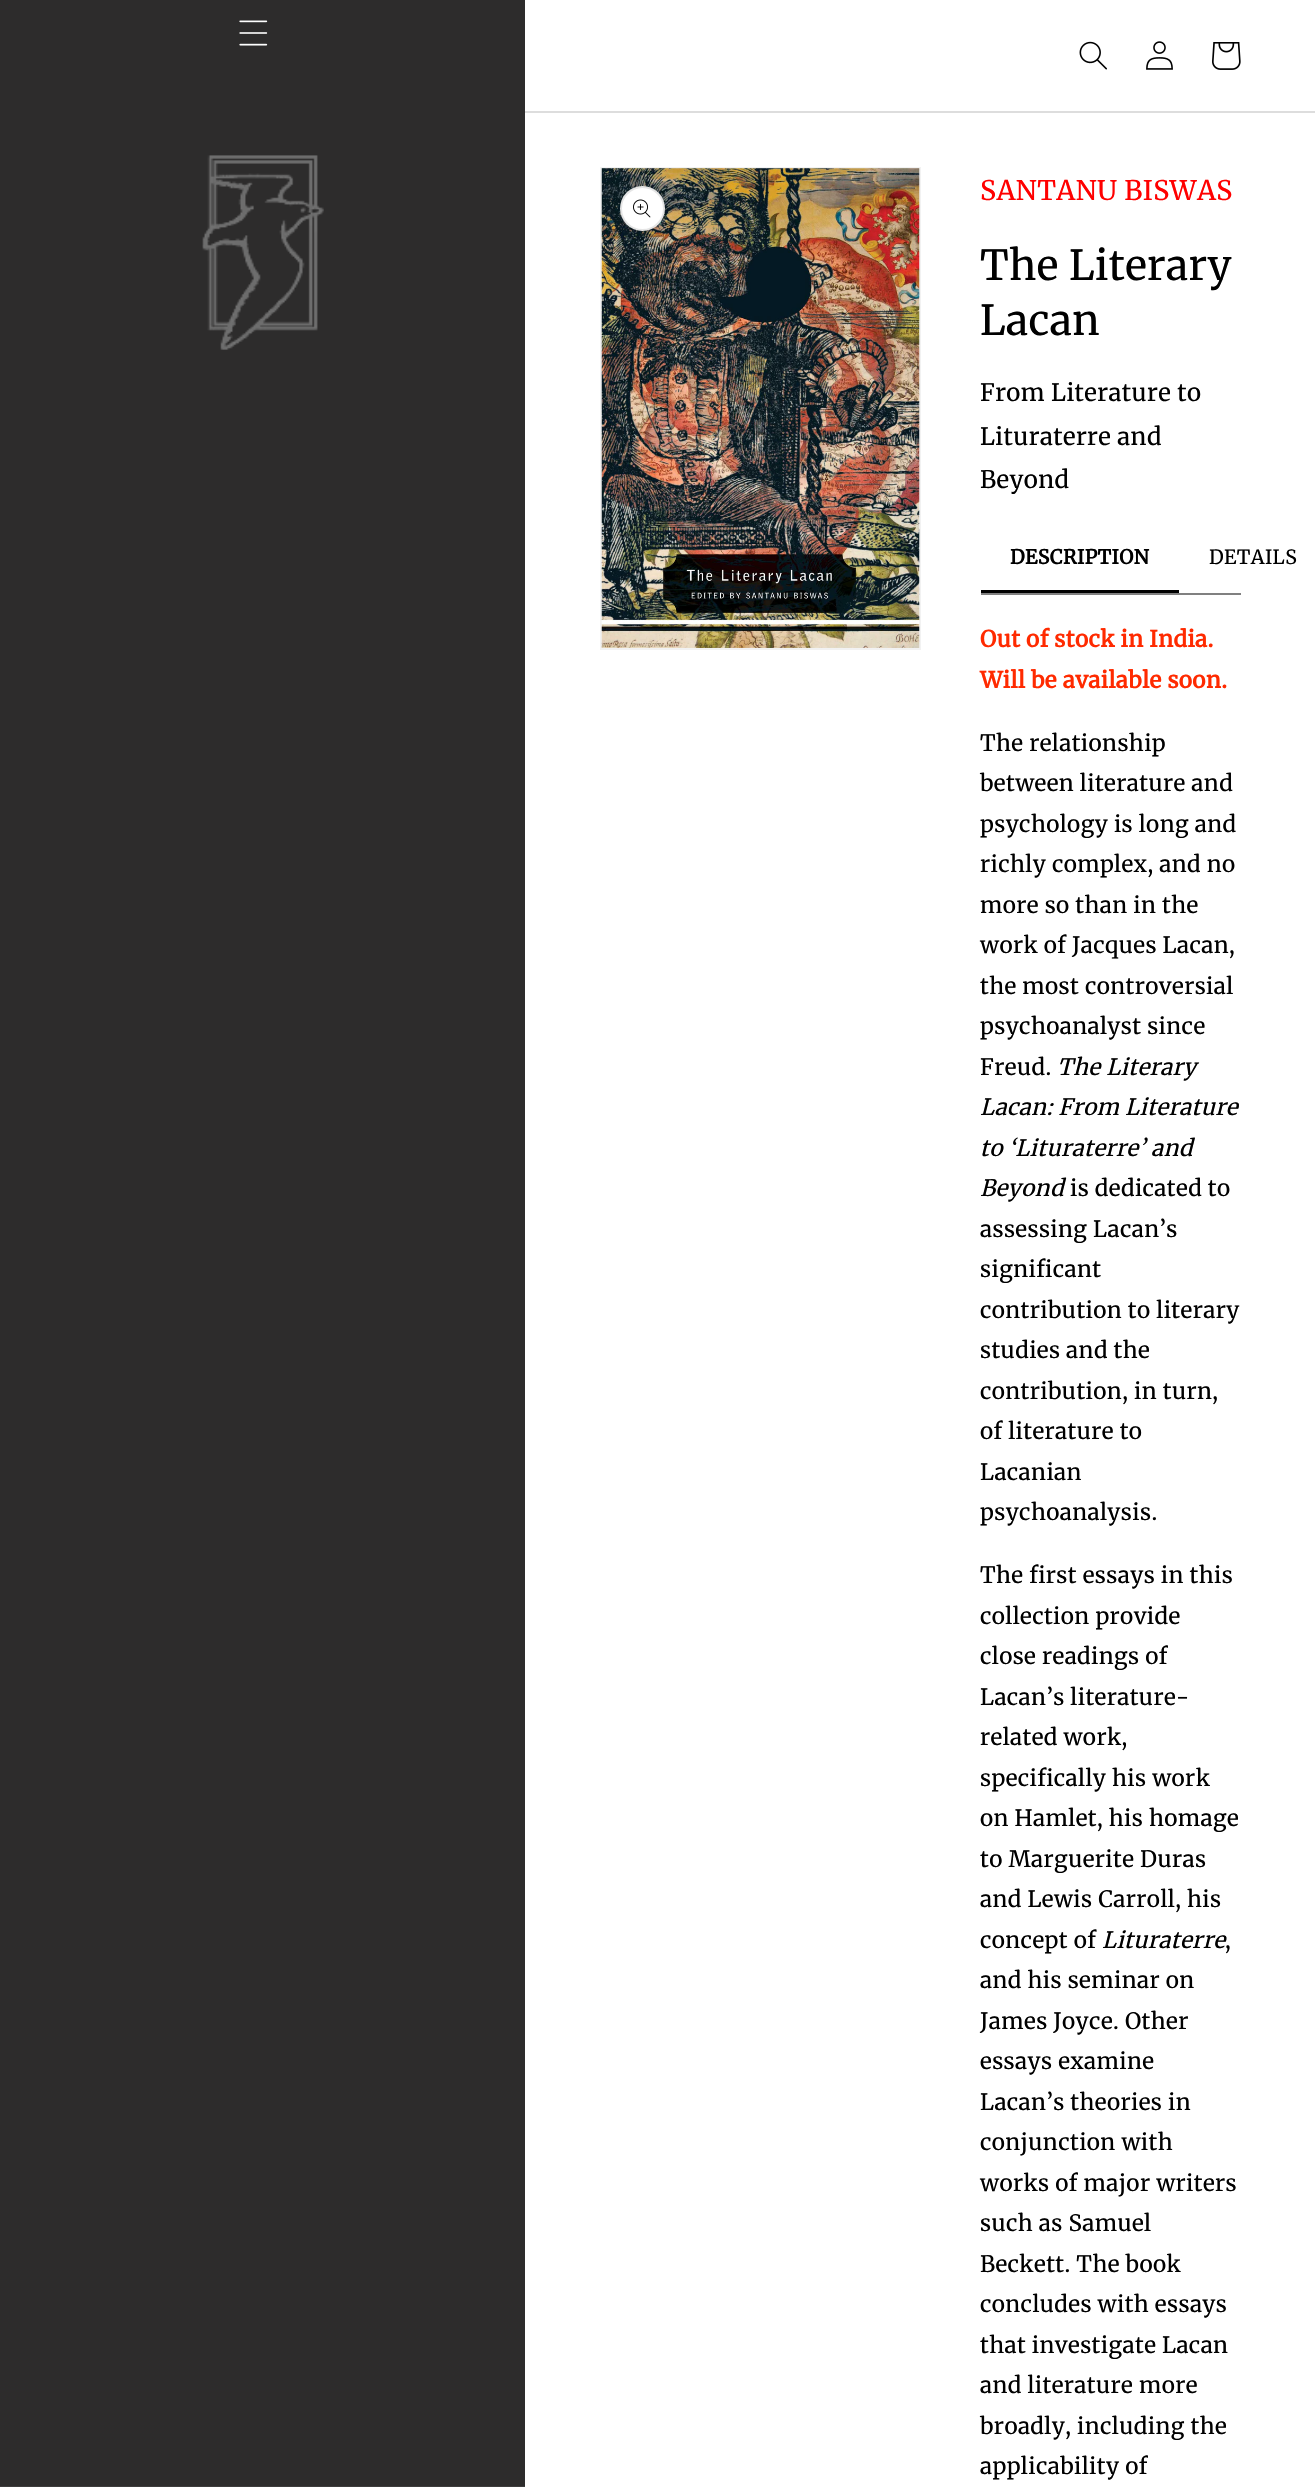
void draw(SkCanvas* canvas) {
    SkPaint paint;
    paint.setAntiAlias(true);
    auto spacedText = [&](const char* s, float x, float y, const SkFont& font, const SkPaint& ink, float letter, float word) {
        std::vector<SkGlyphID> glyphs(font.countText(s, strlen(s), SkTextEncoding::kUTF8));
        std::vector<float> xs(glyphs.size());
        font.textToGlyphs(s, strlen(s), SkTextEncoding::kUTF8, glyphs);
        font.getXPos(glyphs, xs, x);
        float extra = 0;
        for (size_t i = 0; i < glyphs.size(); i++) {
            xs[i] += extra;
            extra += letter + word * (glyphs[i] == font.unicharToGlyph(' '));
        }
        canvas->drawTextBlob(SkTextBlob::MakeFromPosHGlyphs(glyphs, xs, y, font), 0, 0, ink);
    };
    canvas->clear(0xFFFFFFFF);
    paint.setColor(0xFF2D2C2C);
    canvas->drawRect(SkRect::MakeXYWH(0, 0, 525, 2486), paint);
    paint.setColor(0xFF3E3D3D);
    canvas->drawRect(SkRect::MakeXYWH(0, 2486, 525, 1), paint);
    canvas->drawImageRect(SkImages::DeferredFromEncodedData(SkData::MakeFromFileName("img1.png")), SkRect::MakeXYWH(239, 20, 29, 26), SkSamplingOptions());
    canvas->drawImageRect(SkImages::DeferredFromEncodedData(SkData::MakeFromFileName("img2.png")), SkRect::MakeXYWH(202, 155, 122, 195), SkSamplingOptions());
    paint.setColor(0xFFDDDDDD);
    canvas->drawRect(SkRect::MakeXYWH(525, 111, 790, 2), paint);
    canvas->drawImageRect(SkImages::DeferredFromEncodedData(SkData::MakeFromFileName("img3.png")), SkRect::MakeXYWH(1079, 41, 28, 29), SkSamplingOptions());
    canvas->drawImageRect(SkImages::DeferredFromEncodedData(SkData::MakeFromFileName("img4.png")), SkRect::MakeXYWH(1146, 41, 27, 29), SkSamplingOptions());
    canvas->drawImageRect(SkImages::DeferredFromEncodedData(SkData::MakeFromFileName("img5.png")), SkRect::MakeXYWH(1212, 42, 29, 28), SkSamplingOptions());
    paint.setStyle(SkPaint::kStroke_Style);
    paint.setStrokeWidth(2);
    paint.setColor(0xFFF2F2F2);
    canvas->drawRect(SkRect::MakeXYWH(601, 168, 319, 481), paint);
    canvas->drawImageRect(SkImages::DeferredFromEncodedData(SkData::MakeFromFileName("img6.png")), SkRect::MakeXYWH(601, 168, 319, 480), SkSamplingOptions());
    paint.setStyle(SkPaint::kFill_Style);
    paint.setColor(0xFFFFFFFF);
    canvas->drawCircle(642.5f, 208.5f, 22.5f, paint);
    paint.setStyle(SkPaint::kStroke_Style);
    paint.setColor(0x1A000000);
    canvas->drawCircle(642.5f, 208.5f, 21.5f, paint);
    canvas->drawImageRect(SkImages::DeferredFromEncodedData(SkData::MakeFromFileName("img7.png")), SkRect::MakeXYWH(633, 199, 18, 19), SkSamplingOptions());
    SkFont font1(fontMgr->matchFamilyStyle("Merriweather", SkFontStyle(300, SkFontStyle::kNormal_Width, SkFontStyle::kUpright_Slant)), 27);
    font1.setSubpixel(true);
    paint.setStyle(SkPaint::kFill_Style);
    paint.setColor(0xFFFF0000);
    spacedText("SANTANU BISWAS", 980, 200, font1, paint, 0.4f, 0);
    SkFont font2(fontMgr->matchFamilyStyle("Merriweather", SkFontStyle(300, SkFontStyle::kNormal_Width, SkFontStyle::kUpright_Slant)), 41.25f);
    font2.setSubpixel(true);
    paint.setColor(0xFF000000);
    spacedText("The Literary", 980, 280, font2, paint, 0.4f, 0);
    spacedText("Lacan", 980, 335, font2, paint, 0.4f, 0);
    SkFont font3(fontMgr->matchFamilyStyle("Merriweather", SkFontStyle(300, SkFontStyle::kNormal_Width, SkFontStyle::kUpright_Slant)), 24);
    font3.setSubpixel(true);
    spacedText("From Literature to", 980, 401, font3, paint, 0.4f, 0);
    spacedText("Lituraterre and", 980, 445, font3, paint, 0.4f, 0);
    spacedText("Beyond", 980, 488, font3, paint, 0.4f, 0);
    paint.setColor(0xFF808080);
    canvas->drawRect(SkRect::MakeXYWH(981, 593, 260, 2), paint);
    paint.setColor(0xFF000000);
    canvas->drawRect(SkRect::MakeXYWH(981, 590, 198, 3), paint);
    SkFont font4(fontMgr->matchFamilyStyle("Merriweather", SkFontStyle::Bold()), 19.5f);
    font4.setSubpixel(true);
    spacedText("DESCRIPTION", 1010, 564, font4, paint, 0.4f, 0);
    SkFont font5(fontMgr->matchFamilyStyle("Merriweather", SkFontStyle(300, SkFontStyle::kNormal_Width, SkFontStyle::kUpright_Slant)), 19.5f);
    font5.setSubpixel(true);
    spacedText("DETAILS", 1209, 564, font5, paint, 0.4f, 0);
    SkFont font6(fontMgr->matchFamilyStyle("Merriweather", SkFontStyle::Bold()), 22.5f);
    font6.setSubpixel(true);
    paint.setColor(0xFFFF2A00);
    spacedText("Out of stock in India.", 980, 647, font6, paint, 0.4f, 0);
    spacedText("Will be available soon.", 980, 688, font6, paint, 0.4f, 0);
    SkFont font7(fontMgr->matchFamilyStyle("Merriweather", SkFontStyle(300, SkFontStyle::kNormal_Width, SkFontStyle::kUpright_Slant)), 22.5f);
    font7.setSubpixel(true);
    paint.setColor(0xFF000000);
    spacedText("The relationship", 980, 751, font7, paint, 0.4f, 0);
    spacedText("between literature and", 980, 791, font7, paint, 0.4f, 0);
    spacedText("psychology is long and", 980, 832, font7, paint, 0.4f, 0);
    spacedText("richly complex, and no", 980, 872, font7, paint, 0.4f, 0);
    spacedText("more so than in the", 980, 913, font7, paint, 0.4f, 0);
    spacedText("work of Jacques Lacan,", 980, 953, font7, paint, 0.4f, 0);
    spacedText("the most controversial", 980, 994, font7, paint, 0.4f, 0);
    spacedText("psychoanalyst since", 980, 1034, font7, paint, 0.4f, 0);
    spacedText("Freud.", 980, 1075, font7, paint, 0.4f, 0);
    SkFont font8(fontMgr->matchFamilyStyle("Merriweather", SkFontStyle(300, SkFontStyle::kNormal_Width, SkFontStyle::kItalic_Slant)), 22.5f);
    font8.setSubpixel(true);
    spacedText("The Literary", 1057, 1075, font8, paint, 0.4f, 0);
    spacedText("Lacan: From Literature", 980, 1115, font8, paint, 0.4f, 0);
    spacedText("to ‘Lituraterre’ and", 980, 1156, font8, paint, 0.4f, 0);
    spacedText("Beyond", 980, 1196, font8, paint, 0.4f, 0);
    spacedText("is dedicated to", 1070, 1196, font7, paint, 0.4f, 0);
    spacedText("assessing Lacan’s", 980, 1237, font7, paint, 0.4f, 0);
    spacedText("significant", 980, 1277, font7, paint, 0.4f, 0);
    spacedText("contribution to literary", 980, 1318, font7, paint, 0.4f, 0);
    spacedText("studies and the", 980, 1358, font7, paint, 0.4f, 0);
    spacedText("contribution, in turn,", 980, 1399, font7, paint, 0.4f, 0);
    spacedText("of literature to", 980, 1439, font7, paint, 0.4f, 0);
    spacedText("Lacanian", 980, 1480, font7, paint, 0.4f, 0);
    spacedText("psychoanalysis.", 980, 1520, font7, paint, 0.4f, 0);
    spacedText("The first essays in this", 980, 1583, font7, paint, 0.4f, 0);
    spacedText("collection provide", 980, 1624, font7, paint, 0.4f, 0);
    spacedText("close readings of", 980, 1664, font7, paint, 0.4f, 0);
    spacedText("Lacan’s literature-", 980, 1705, font7, paint, 0.4f, 0);
    spacedText("related work,", 980, 1745, font7, paint, 0.4f, 0);
    spacedText("specifically his work", 980, 1786, font7, paint, 0.4f, 0);
    spacedText("on Hamlet, his homage", 980, 1826, font7, paint, 0.4f, 0);
    spacedText("to Marguerite Duras", 980, 1867, font7, paint, 0.4f, 0);
    spacedText("and Lewis Carroll, his", 980, 1907, font7, paint, 0.4f, 0);
    spacedText("concept of", 980, 1948, font7, paint, 0.4f, 0);
    spacedText("Lituraterre", 1102, 1948, font8, paint, 0.4f, 0);
    spacedText(",", 1225, 1948, font7, paint, 0.4f, 0);
    spacedText("and his seminar on", 980, 1988, font7, paint, 0.4f, 0);
    spacedText("James Joyce. Other", 980, 2029, font7, paint, 0.4f, 0);
    spacedText("essays examine", 980, 2069, font7, paint, 0.4f, 0);
    spacedText("Lacan’s theories in", 980, 2110, font7, paint, 0.4f, 0);
    spacedText("conjunction with", 980, 2150, font7, paint, 0.4f, 0);
    spacedText("works of major writers", 980, 2191, font7, paint, 0.4f, 0);
    spacedText("such as Samuel", 980, 2231, font7, paint, 0.4f, 0);
    spacedText("Beckett. The book", 980, 2272, font7, paint, 0.4f, 0);
    spacedText("concludes with essays", 980, 2312, font7, paint, 0.4f, 0);
    spacedText("that investigate Lacan", 980, 2353, font7, paint, 0.4f, 0);
    spacedText("and literature more", 980, 2393, font7, paint, 0.4f, 0);
    spacedText("broadly, including the", 980, 2434, font7, paint, 0.4f, 0);
    spacedText("applicability of", 980, 2474, font7, paint, 0.4f, 0);
}
